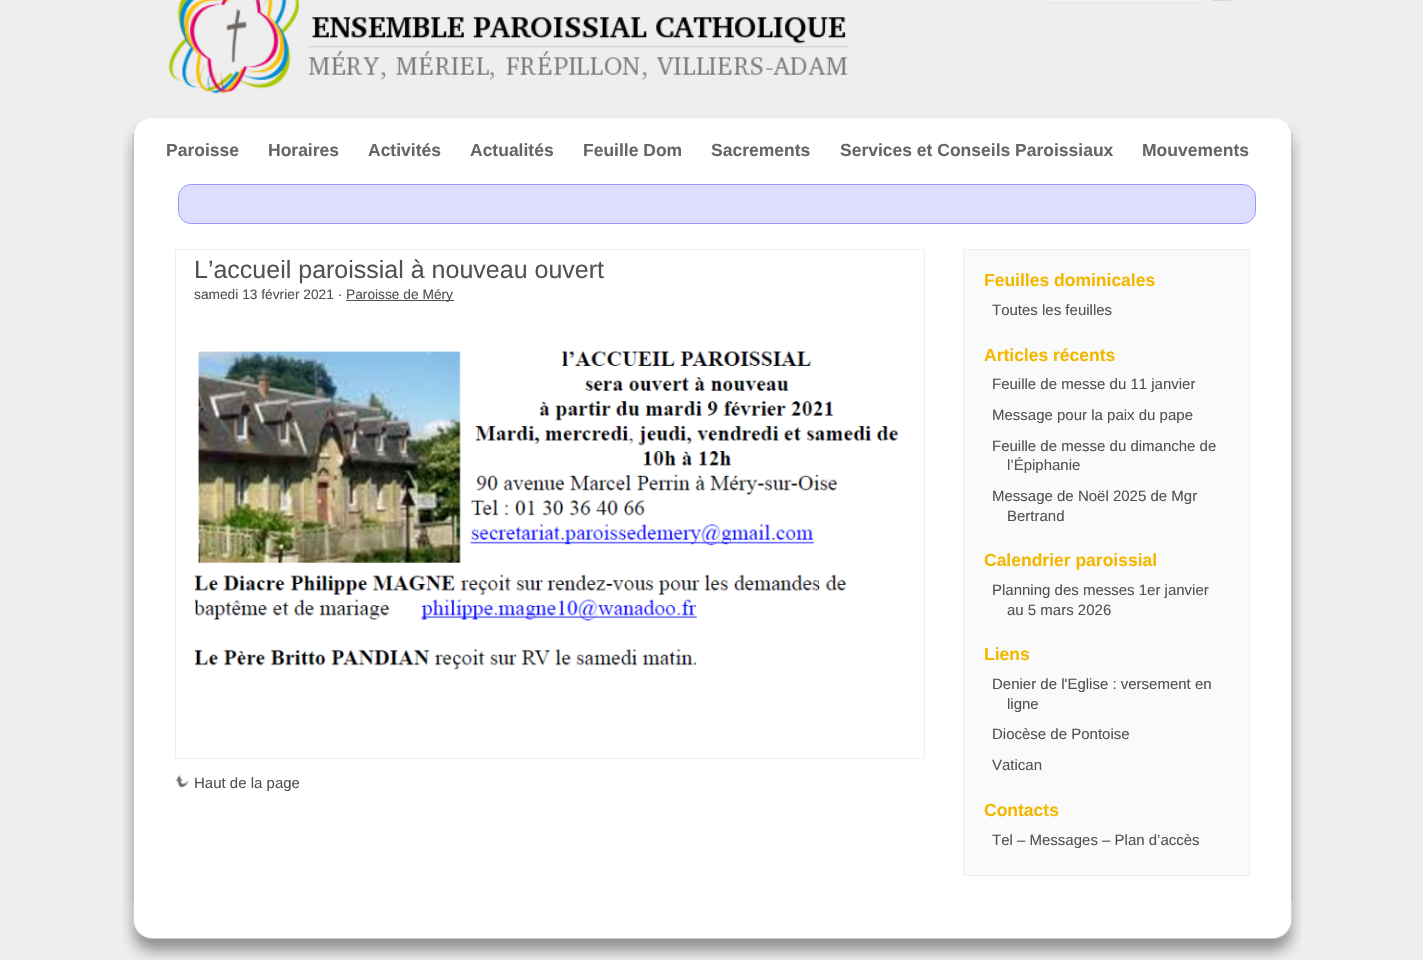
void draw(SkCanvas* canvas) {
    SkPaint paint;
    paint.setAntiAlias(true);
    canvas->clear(0xFFEEEEEE);
    canvas->drawImageRect(SkImages::DeferredFromEncodedData(SkData::MakeFromFileName("img1.png")), SkRect::MakeXYWH(168, 0, 681, 94), SkSamplingOptions());
    paint.setColor(0xFFF3F3F3);
    canvas->drawRect(SkRect::MakeXYWH(1045.5f, -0.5f, 157, 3), paint);
    paint.setStyle(SkPaint::kStroke_Style);
    paint.setStrokeWidth(1);
    paint.setColor(0xFFE3E3E3);
    canvas->drawRect(SkRect::MakeXYWH(1045.5f, -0.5f, 157, 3), paint);
    canvas->drawImageRect(SkImages::DeferredFromEncodedData(SkData::MakeFromFileName("img2.png")), SkRect::MakeXYWH(1211, 0, 20, 1), SkSamplingOptions());
    canvas->drawImageRect(SkImages::DeferredFromEncodedData(SkData::MakeFromFileName("img3.png")), SkRect::MakeXYWH(123, 118, 1179, 47), SkSamplingOptions());
    SkFont font1(fontMgr->matchFamilyStyle("Liberation Sans", SkFontStyle::Bold()), 17.5f);
    font1.setSubpixel(true);
    paint.setStyle(SkPaint::kFill_Style);
    paint.setColor(0xFF666666);
    canvas->drawString("Paroisse", 166, 156, font1, paint);
    canvas->drawString("Horaires", 268, 156, font1, paint);
    canvas->drawString("Activités", 368, 156, font1, paint);
    canvas->drawString("Actualités", 470, 156, font1, paint);
    canvas->drawString("Feuille Dom", 583, 156, font1, paint);
    canvas->drawString("Sacrements", 711, 156, font1, paint);
    canvas->drawString("Services et Conseils Paroissiaux", 840, 156, font1, paint);
    canvas->drawString("Mouvements", 1142, 156, font1, paint);
    canvas->drawImageRect(SkImages::DeferredFromEncodedData(SkData::MakeFromFileName("img4.png")), SkRect::MakeXYWH(123, 164, 1179, 737), SkSamplingOptions());
    paint.setColor(0xFFDDDDFF);
    canvas->drawRoundRect(SkRect::MakeXYWH(178.5f, 184.5f, 1077, 39), 12.5f, 12.5f, paint);
    paint.setStyle(SkPaint::kStroke_Style);
    paint.setColor(0xFF9999FF);
    canvas->drawRoundRect(SkRect::MakeXYWH(178.5f, 184.5f, 1077, 39), 12.5f, 12.5f, paint);
    paint.setColor(0xFFEEEEEE);
    canvas->drawRect(SkRect::MakeXYWH(175.5f, 249.5f, 749, 509), paint);
    SkFont font2(fontMgr->matchFamilyStyle("Liberation Sans", SkFontStyle::Normal()), 25);
    font2.setSubpixel(true);
    paint.setStyle(SkPaint::kFill_Style);
    paint.setColor(0xFF525252);
    canvas->drawString("L’accueil paroissial à nouveau ouvert", 194, 278, font2, paint);
    SkFont font3(fontMgr->matchFamilyStyle("Liberation Sans", SkFontStyle::Normal()), 13.75f);
    font3.setSubpixel(true);
    canvas->drawString("samedi 13 février 2021 ·", 194, 299, font3, paint);
    canvas->drawRect(SkRect::MakeXYWH(346, 300, 108, 1), paint);
    canvas->drawString("Paroisse de Méry", 346, 299, font3, paint);
    canvas->drawImageRect(SkImages::DeferredFromEncodedData(SkData::MakeFromFileName("img5.png")), SkRect::MakeXYWH(195, 351, 704, 319), SkSamplingOptions());
    canvas->drawImageRect(SkImages::DeferredFromEncodedData(SkData::MakeFromFileName("img6.png")), SkRect::MakeXYWH(175, 774, 14, 14), SkSamplingOptions());
    SkFont font4(fontMgr->matchFamilyStyle("Liberation Sans", SkFontStyle::Normal()), 15);
    font4.setSubpixel(true);
    canvas->drawString("Haut de la page", 194, 788, font4, paint);
    paint.setColor(0xFFFAFAFA);
    canvas->drawRect(SkRect::MakeXYWH(963.5f, 249.5f, 286, 626), paint);
    paint.setStyle(SkPaint::kStroke_Style);
    paint.setColor(0xFFEEEEEE);
    canvas->drawRect(SkRect::MakeXYWH(963.5f, 249.5f, 286, 626), paint);
    paint.setStyle(SkPaint::kFill_Style);
    paint.setColor(0xFFF4B700);
    canvas->drawString("Feuilles dominicales", 984, 286, font1, paint);
    paint.setColor(0xFF525252);
    canvas->drawString("Toutes les feuilles", 992, 315, font4, paint);
    paint.setColor(0xFFF4B700);
    canvas->drawString("Articles récents", 984, 361, font1, paint);
    paint.setColor(0xFF525252);
    canvas->drawString("Feuille de messe du 11 janvier", 992, 389, font4, paint);
    canvas->drawString("Message pour la paix du pape", 992, 420, font4, paint);
    canvas->drawString("Feuille de messe du dimanche de", 992, 451, font4, paint);
    canvas->drawString("l’Épiphanie", 1007, 470, font4, paint);
    canvas->drawString("Message de Noël 2025 de Mgr", 992, 501, font4, paint);
    canvas->drawString("Bertrand", 1007, 521, font4, paint);
    paint.setColor(0xFFF4B700);
    canvas->drawString("Calendrier paroissial", 984, 566, font1, paint);
    paint.setColor(0xFF525252);
    canvas->drawString("Planning des messes 1er janvier", 992, 595, font4, paint);
    canvas->drawString("au 5 mars 2026", 1007, 615, font4, paint);
    paint.setColor(0xFFF4B700);
    canvas->drawString("Liens", 984, 660, font1, paint);
    paint.setColor(0xFF525252);
    canvas->drawString("Denier de l'Eglise : versement en", 992, 689, font4, paint);
    canvas->drawString("ligne", 1007, 709, font4, paint);
    canvas->drawString("Diocèse de Pontoise", 992, 739, font4, paint);
    canvas->drawString("Vatican", 992, 770, font4, paint);
    paint.setColor(0xFFF4B700);
    canvas->drawString("Contacts", 984, 816, font1, paint);
    paint.setColor(0xFF525252);
    canvas->drawString("Tel – Messages – Plan d’accès", 992, 845, font4, paint);
    canvas->drawImageRect(SkImages::DeferredFromEncodedData(SkData::MakeFromFileName("img7.png")), SkRect::MakeXYWH(123, 901, 1179, 59), SkSamplingOptions());
}
